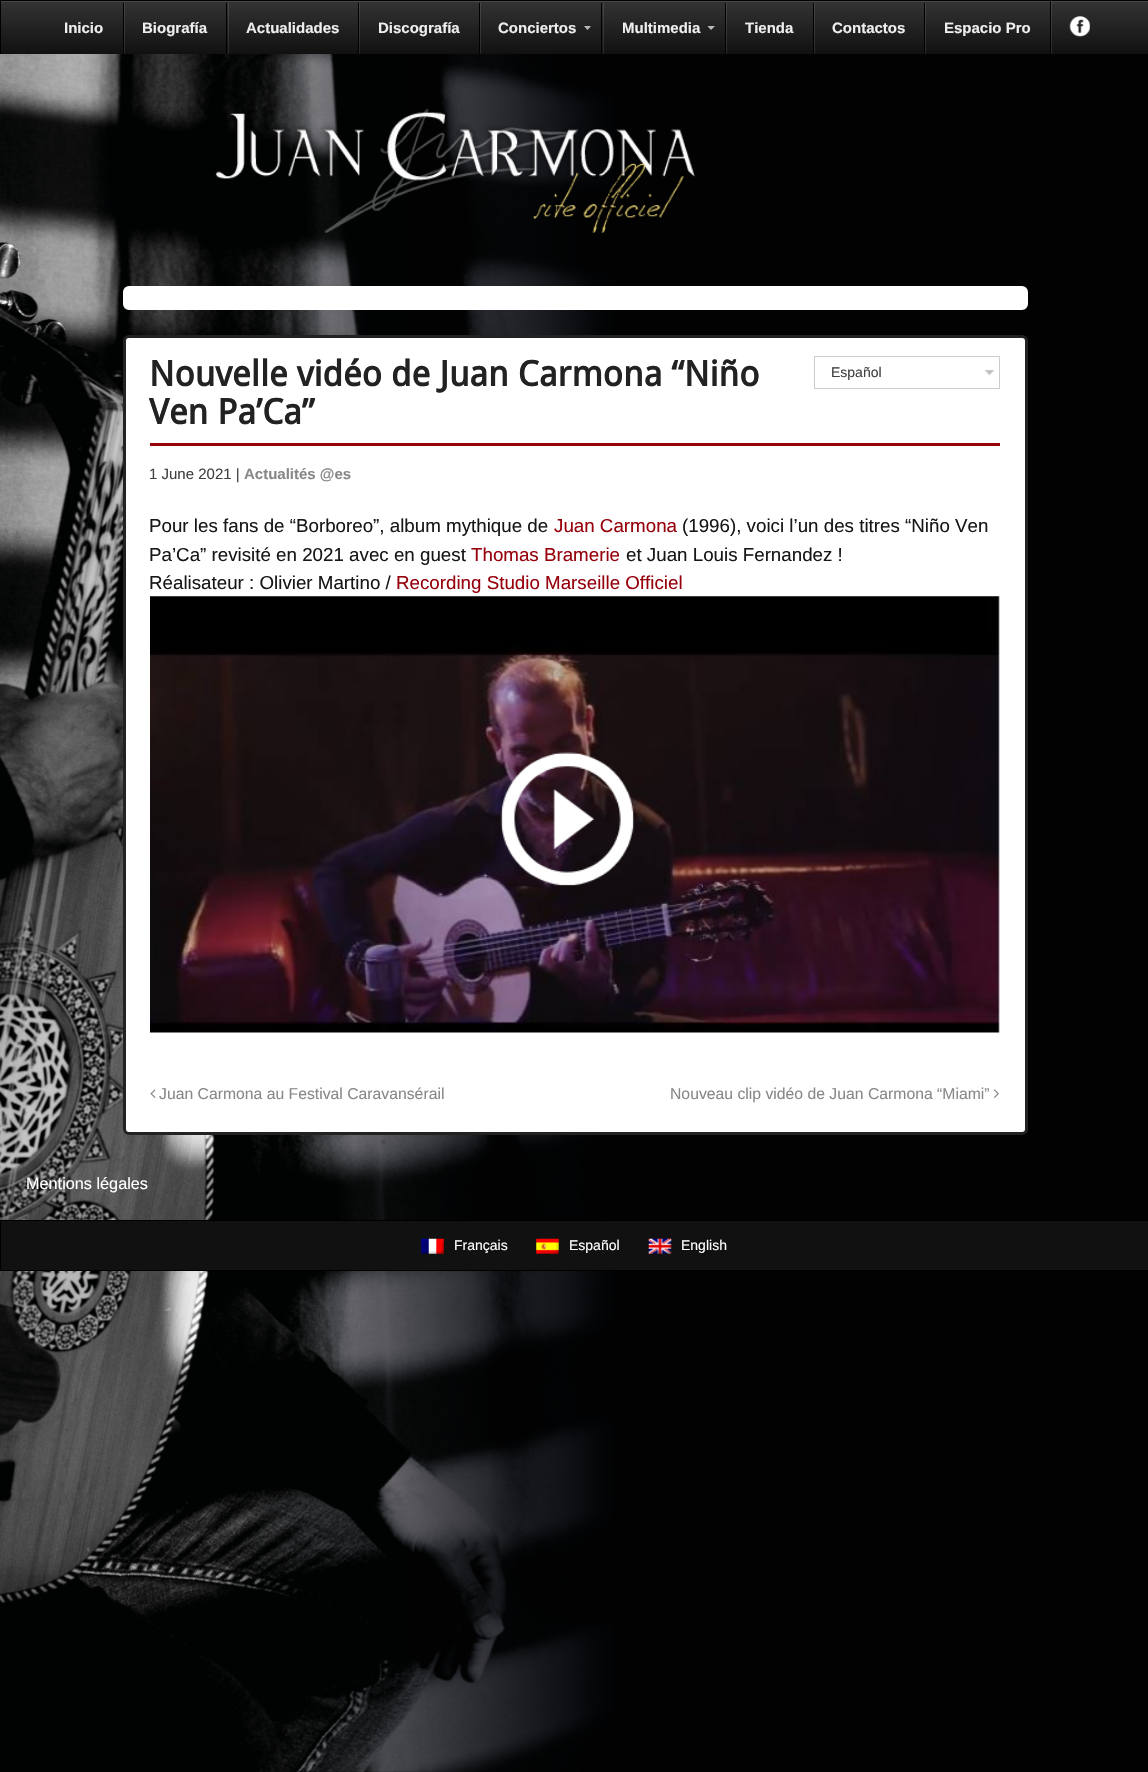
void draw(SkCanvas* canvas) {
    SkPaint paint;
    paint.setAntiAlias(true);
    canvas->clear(0xFFFFFFFF);
    canvas->drawImageRect(SkImages::DeferredFromEncodedData(SkData::MakeFromFileName("img1.png")), SkRect::MakeXYWH(0, 54, 1148, 1718), SkSamplingOptions());
    {
        const SkColor colors[] = {0xFF333333, 0xFF111111};
        const float stops[] = {0, 1};
        const SkPoint ends[] = {{574, 1.2f}, {574, 54}};
        paint.setShader(SkGradientShader::MakeLinear(ends, colors, stops, 2, SkTileMode::kClamp));
        paint.setAlpha(255);
    }
    canvas->drawRect(SkRect::MakeXYWH(1, 2, 1147, 52), paint);
    paint.setShader(nullptr);
    paint.setColor(0xFF474747);
    canvas->drawRect(SkRect::MakeXYWH(1, 1, 1147, 1), paint);
    paint.setColor(0xFF000000);
    canvas->drawRect(SkRect::MakeXYWH(0, 0, 1148, 1), paint);
    canvas->drawRect(SkRect::MakeXYWH(0, 0, 1, 54), paint);
    SkFont font1(fontMgr->matchFamilyStyle("Liberation Sans", SkFontStyle::Bold()), 15);
    font1.setSubpixel(true);
    paint.setColor(0xFFEEEEEE);
    canvas->drawString("Inicio", 64, 33, font1, paint);
    paint.setColor(0x1AFFFFFF);
    canvas->drawRect(SkRect::MakeXYWH(124, 3, 1, 51), paint);
    paint.setColor(0xFF000000);
    canvas->drawRect(SkRect::MakeXYWH(123, 3, 1, 51), paint);
    paint.setColor(0xFFEEEEEE);
    canvas->drawString("Biografía", 142, 33, font1, paint);
    paint.setColor(0x1AFFFFFF);
    canvas->drawRect(SkRect::MakeXYWH(228, 3, 1, 51), paint);
    paint.setColor(0xFF000000);
    canvas->drawRect(SkRect::MakeXYWH(226, 3, 1, 51), paint);
    paint.setColor(0xFFEEEEEE);
    canvas->drawString("Actualidades", 246, 33, font1, paint);
    paint.setColor(0x1AFFFFFF);
    canvas->drawRect(SkRect::MakeXYWH(359, 3, 1, 51), paint);
    paint.setColor(0xFF000000);
    canvas->drawRect(SkRect::MakeXYWH(358, 3, 1, 51), paint);
    paint.setColor(0xFFEEEEEE);
    canvas->drawString("Discografía", 378, 33, font1, paint);
    paint.setColor(0x1AFFFFFF);
    canvas->drawRect(SkRect::MakeXYWH(480, 3, 1, 51), paint);
    paint.setColor(0xFF000000);
    canvas->drawRect(SkRect::MakeXYWH(479, 3, 1, 51), paint);
    paint.setColor(0xFFEEEEEE);
    canvas->drawString("Conciertos", 498, 33, font1, paint);
    paint.setColor(0xFFBBBBBB);
    canvas->drawPath(SkPathBuilder().moveTo(584, 26).lineTo(591, 26).lineTo(587.5f, 30).close().detach(), paint);
    paint.setColor(0x1AFFFFFF);
    canvas->drawRect(SkRect::MakeXYWH(603, 3, 1, 51), paint);
    paint.setColor(0xFF000000);
    canvas->drawRect(SkRect::MakeXYWH(601, 3, 1, 51), paint);
    paint.setColor(0xFFEEEEEE);
    canvas->drawString("Multimedia", 622, 33, font1, paint);
    paint.setColor(0xFFBBBBBB);
    canvas->drawPath(SkPathBuilder().moveTo(707.5f, 26).lineTo(715, 26).lineTo(711, 30).close().detach(), paint);
    paint.setColor(0x1AFFFFFF);
    canvas->drawRect(SkRect::MakeXYWH(726, 3, 1, 51), paint);
    paint.setColor(0xFF000000);
    canvas->drawRect(SkRect::MakeXYWH(725, 3, 1, 51), paint);
    paint.setColor(0xFFEEEEEE);
    canvas->drawString("Tienda", 745, 33, font1, paint);
    paint.setColor(0x1AFFFFFF);
    canvas->drawRect(SkRect::MakeXYWH(814, 3, 1, 51), paint);
    paint.setColor(0xFF000000);
    canvas->drawRect(SkRect::MakeXYWH(813, 3, 1, 51), paint);
    paint.setColor(0xFFEEEEEE);
    canvas->drawString("Contactos", 832, 33, font1, paint);
    paint.setColor(0x1AFFFFFF);
    canvas->drawRect(SkRect::MakeXYWH(925, 3, 1, 51), paint);
    paint.setColor(0xFF000000);
    canvas->drawRect(SkRect::MakeXYWH(924, 3, 1, 51), paint);
    paint.setColor(0xFFEEEEEE);
    canvas->drawString("Espacio Pro", 944, 33, font1, paint);
    paint.setColor(0x1AFFFFFF);
    canvas->drawRect(SkRect::MakeXYWH(1051, 1, 1, 53), paint);
    paint.setColor(0xFF000000);
    canvas->drawRect(SkRect::MakeXYWH(1050, 1, 1, 53), paint);
    canvas->drawImageRect(SkImages::DeferredFromEncodedData(SkData::MakeFromFileName("img2.png")), SkRect::MakeXYWH(1069, 16, 21, 21), SkSamplingOptions());
    canvas->drawImageRect(SkImages::DeferredFromEncodedData(SkData::MakeFromFileName("img3.png")), SkRect::MakeXYWH(215, 108, 480, 125), SkSamplingOptions());
    paint.setColor(0xFFFFFFFF);
    canvas->drawRoundRect(SkRect::MakeXYWH(124.5f, 287.5f, 902, 21), 4.5f, 4.5f, paint);
    paint.setStyle(SkPaint::kStroke_Style);
    paint.setStrokeWidth(3);
    canvas->drawRoundRect(SkRect::MakeXYWH(124.5f, 287.5f, 902, 21), 4.5f, 4.5f, paint);
    paint.setStyle(SkPaint::kFill_Style);
    canvas->drawRoundRect(SkRect::MakeXYWH(124.5f, 336.5f, 902, 797), 4.5f, 4.5f, paint);
    paint.setStyle(SkPaint::kStroke_Style);
    paint.setColor(0xFF222222);
    canvas->drawRoundRect(SkRect::MakeXYWH(124.5f, 336.5f, 902, 797), 4.5f, 4.5f, paint);
    paint.setStyle(SkPaint::kFill_Style);
    paint.setColor(0xFF96000A);
    canvas->drawRect(SkRect::MakeXYWH(150, 443, 850, 3), paint);
    SkFont font2(fontMgr->matchFamilyStyle("Droid Sans", SkFontStyle::Bold()), 35);
    font2.setSubpixel(true);
    paint.setColor(0xFF222222);
    canvas->drawString("Nouvelle vidéo de Juan Carmona “Niño", 149, 386, font2, paint);
    canvas->drawString("Ven Pa’Ca”", 149, 424, font2, paint);
    SkFont font3(fontMgr->matchFamilyStyle("Liberation Sans", SkFontStyle::Normal()), 15);
    font3.setSubpixel(true);
    paint.setColor(0xFF404040);
    canvas->drawString("1 June 2021 |", 149, 479, font3, paint);
    paint.setColor(0xFF888888);
    canvas->drawString("Actualités @es", 244, 479, font1, paint);
    SkFont font4(fontMgr->matchFamilyStyle("Liberation Sans", SkFontStyle::Normal()), 18.75f);
    font4.setSubpixel(true);
    paint.setColor(0xFF171717);
    canvas->drawString("Pour les fans de “Borboreo”, album mythique de", 149, 532, font4, paint);
    paint.setColor(0xFF96000A);
    canvas->drawString("Juan Carmona", 554, 532, font4, paint);
    paint.setColor(0xFF171717);
    canvas->drawString("(1996), voici l’un des titres “Niño Ven", 682, 532, font4, paint);
    canvas->drawString("Pa’Ca” revisité en 2021 avec en guest", 149, 561, font4, paint);
    paint.setColor(0xFF96000A);
    canvas->drawString("Thomas Bramerie", 471, 561, font4, paint);
    paint.setColor(0xFF171717);
    canvas->drawString("et Juan Louis Fernandez !", 626, 561, font4, paint);
    canvas->drawString("Réalisateur : Olivier Martino /", 149, 589, font4, paint);
    paint.setColor(0xFF96000A);
    canvas->drawString("Recording Studio Marseille Officiel", 396, 589, font4, paint);
    canvas->drawImageRect(SkImages::DeferredFromEncodedData(SkData::MakeFromFileName("img4.png")), SkRect::MakeXYWH(150, 596, 850, 437), SkSamplingOptions());
    canvas->drawImageRect(SkImages::DeferredFromEncodedData(SkData::MakeFromFileName("img5.png")), SkRect::MakeXYWH(150, 1089, 6, 9), SkSamplingOptions());
    SkFont font5(fontMgr->matchFamilyStyle("Liberation Sans", SkFontStyle::Normal()), 15.75f);
    font5.setSubpixel(true);
    paint.setColor(0xFF888888);
    canvas->drawString("Juan Carmona au Festival Caravansérail", 159, 1099, font5, paint);
    canvas->drawString("Nouveau clip vidéo de Juan Carmona “Miami”", 670, 1099, font5, paint);
    canvas->drawImageRect(SkImages::DeferredFromEncodedData(SkData::MakeFromFileName("img6.png")), SkRect::MakeXYWH(993, 1089, 6, 9), SkSamplingOptions());
    canvas->drawImageRect(SkImages::DeferredFromEncodedData(SkData::MakeFromFileName("img7.png")), SkRect::MakeXYWH(985, 370, 9, 6), SkSamplingOptions());
    paint.setStyle(SkPaint::kStroke_Style);
    paint.setStrokeWidth(1);
    paint.setColor(0xFFCDCDCD);
    canvas->drawRect(SkRect::MakeXYWH(814.5f, 356.5f, 185, 32), paint);
    SkFont font6(fontMgr->matchFamilyStyle("Liberation Sans", SkFontStyle::Normal()), 14);
    font6.setSubpixel(true);
    paint.setStyle(SkPaint::kFill_Style);
    paint.setColor(0xFF404040);
    canvas->drawString("Español", 831, 377, font6, paint);
    SkFont font7(fontMgr->matchFamilyStyle("Liberation Sans", SkFontStyle::Normal()), 16.25f);
    font7.setSubpixel(true);
    paint.setColor(0xFFFFFFFF);
    canvas->drawString("Mentions légales", 26, 1189, font7, paint);
    paint.setColor(0xFF111111);
    canvas->drawRect(SkRect::MakeXYWH(0.5f, 1220.5f, 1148, 50), paint);
    paint.setStyle(SkPaint::kStroke_Style);
    paint.setColor(0xFF000000);
    canvas->drawRect(SkRect::MakeXYWH(0.5f, 1220.5f, 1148, 50), paint);
    canvas->drawImageRect(SkImages::DeferredFromEncodedData(SkData::MakeFromFileName("img8.png")), SkRect::MakeXYWH(421, 1238, 23, 16), SkSamplingOptions());
    paint.setStyle(SkPaint::kFill_Style);
    paint.setColor(0xFFFFFFFF);
    canvas->drawString("Français", 454, 1250, font6, paint);
    canvas->drawImageRect(SkImages::DeferredFromEncodedData(SkData::MakeFromFileName("img9.png")), SkRect::MakeXYWH(536, 1238, 23, 16), SkSamplingOptions());
    canvas->drawString("Español", 569, 1250, font6, paint);
    canvas->drawImageRect(SkImages::DeferredFromEncodedData(SkData::MakeFromFileName("img10.png")), SkRect::MakeXYWH(648, 1238, 24, 16), SkSamplingOptions());
    canvas->drawString("English", 681, 1250, font6, paint);
}
